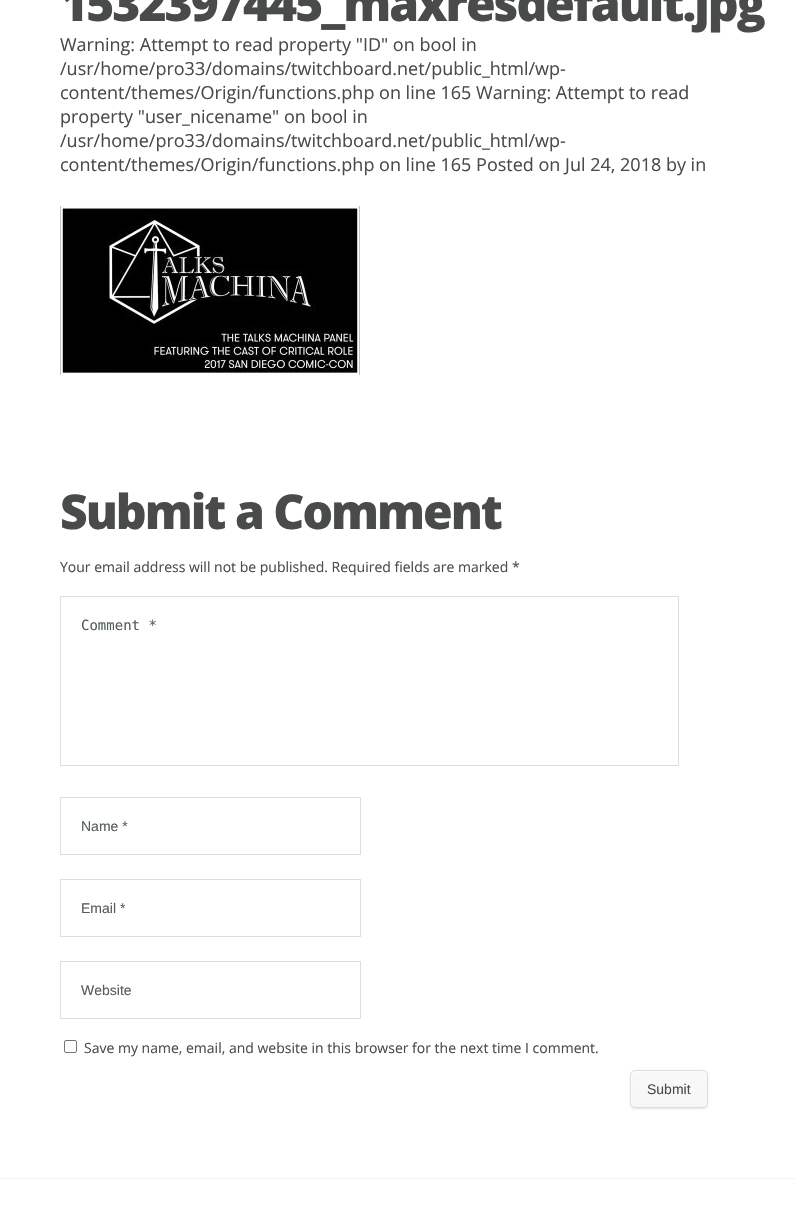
void draw(SkCanvas* canvas) {
    SkPaint paint;
    paint.setAntiAlias(true);
    auto spacedText = [&](const char* s, float x, float y, const SkFont& font, const SkPaint& ink, float letter, float word) {
        std::vector<SkGlyphID> glyphs(font.countText(s, strlen(s), SkTextEncoding::kUTF8));
        std::vector<float> xs(glyphs.size());
        font.textToGlyphs(s, strlen(s), SkTextEncoding::kUTF8, glyphs);
        font.getXPos(glyphs, xs, x);
        float extra = 0;
        for (size_t i = 0; i < glyphs.size(); i++) {
            xs[i] += extra;
            extra += letter + word * (glyphs[i] == font.unicharToGlyph(' '));
        }
        canvas->drawTextBlob(SkTextBlob::MakeFromPosHGlyphs(glyphs, xs, y, font), 0, 0, ink);
    };
    canvas->clear(0xFFFFFFFF);
    SkFont font1(fontMgr->matchFamilyStyle("Open Sans", SkFontStyle(800, SkFontStyle::kNormal_Width, SkFontStyle::kUpright_Slant)), 48);
    font1.setSubpixel(true);
    paint.setColor(0xFF494B4B);
    spacedText("1532397445_maxresdefault.jpg", 60, 21, font1, paint, -2, 0);
    SkFont font2(fontMgr->matchFamilyStyle("Open Sans", SkFontStyle::Normal()), 18);
    font2.setSubpixel(true);
    canvas->drawString("Warning: Attempt to read property \"ID\" on bool in", 60, 51, font2, paint);
    canvas->drawString("/usr/home/pro33/domains/twitchboard.net/public_html/wp-", 60, 75, font2, paint);
    canvas->drawString("content/themes/Origin/functions.php on line 165 Warning: Attempt to read", 60, 99, font2, paint);
    canvas->drawString("property \"user_nicename\" on bool in", 60, 123, font2, paint);
    canvas->drawString("/usr/home/pro33/domains/twitchboard.net/public_html/wp-", 60, 147, font2, paint);
    canvas->drawString("content/themes/Origin/functions.php on line 165 Posted on Jul 24, 2018 by in", 60, 171, font2, paint);
    canvas->drawImageRect(SkImages::DeferredFromEncodedData(SkData::MakeFromFileName("img1.png")), SkRect::MakeXYWH(60, 206, 300, 169), SkSamplingOptions());
    spacedText("Submit a Comment", 60, 529, font1, paint, -2, 0);
    SkFont font3(fontMgr->matchFamilyStyle("Open Sans", SkFontStyle::Normal()), 14);
    font3.setSubpixel(true);
    canvas->drawString("Your email address will not be published. Required fields are marked *", 60, 572, font3, paint);
    paint.setStyle(SkPaint::kStroke_Style);
    paint.setStrokeWidth(1);
    paint.setColor(0xFFE0DDDD);
    canvas->drawRect(SkRect::MakeXYWH(60.5f, 596.5f, 618, 169), paint);
    SkFont font4(fontMgr->matchFamilyStyle("DejaVu Sans Mono", SkFontStyle::Normal()), 14);
    font4.setSubpixel(true);
    paint.setStyle(SkPaint::kFill_Style);
    paint.setColor(0xFF555E58);
    canvas->drawString("Comment *", 81, 630, font4, paint);
    paint.setStyle(SkPaint::kStroke_Style);
    paint.setColor(0xFFE0DDDD);
    canvas->drawRect(SkRect::MakeXYWH(60.5f, 797.5f, 300, 57), paint);
    SkFont font5(fontMgr->matchFamilyStyle("Liberation Sans", SkFontStyle::Normal()), 14);
    font5.setSubpixel(true);
    paint.setStyle(SkPaint::kFill_Style);
    paint.setColor(0xFF555E58);
    canvas->drawString("Name *", 81, 831, font5, paint);
    paint.setStyle(SkPaint::kStroke_Style);
    paint.setColor(0xFFE0DDDD);
    canvas->drawRect(SkRect::MakeXYWH(60.5f, 879.5f, 300, 57), paint);
    paint.setStyle(SkPaint::kFill_Style);
    paint.setColor(0xFF555E58);
    canvas->drawString("Email *", 81, 913, font5, paint);
    paint.setStyle(SkPaint::kStroke_Style);
    paint.setColor(0xFFE0DDDD);
    canvas->drawRect(SkRect::MakeXYWH(60.5f, 961.5f, 300, 57), paint);
    paint.setStyle(SkPaint::kFill_Style);
    paint.setColor(0xFF555E58);
    canvas->drawString("Website", 81, 995, font5, paint);
    paint.setStyle(SkPaint::kStroke_Style);
    paint.setColor(0xFF767676);
    canvas->drawRoundRect(SkRect::MakeXYWH(64.5f, 1040.5f, 12, 12), 1.5f, 1.5f, paint);
    paint.setStyle(SkPaint::kFill_Style);
    paint.setColor(0xFF494B4B);
    canvas->drawString("Save my name, email, and website in this browser for the next time I comment.", 84, 1053, font3, paint);
    paint.setColor(0x1A000000);
    paint.setMaskFilter(SkMaskFilter::MakeBlur(kNormal_SkBlurStyle, 1));
    canvas->drawRoundRect(SkRect::MakeXYWH(630, 1071, 78, 38), 5, 5, paint);
    paint.setMaskFilter(nullptr);
    canvas->save();
    canvas->clipPath(SkPathBuilder().moveTo(635, 1070).lineTo(703, 1070).cubicTo(706, 1070, 708, 1072, 708, 1075).lineTo(708, 1103).cubicTo(708, 1106, 706, 1108, 703, 1108).lineTo(635, 1108).cubicTo(632, 1108, 630, 1106, 630, 1103).lineTo(630, 1075).cubicTo(630, 1072, 632, 1070, 635, 1070).close().detach(), true);
    {
        const SkColor colors[] = {0xFFF9F9F9, 0xFFF6F6F6, 0xFFF2F2F2};
        const float stops[] = {0, 1, 1};
        const SkPoint ends[] = {{669, 1071}, {669, 1107}};
        paint.setShader(SkGradientShader::MakeLinear(ends, colors, stops, 3, SkTileMode::kClamp));
        paint.setAlpha(255);
    }
    canvas->drawRect(SkRect::MakeXYWH(630, 1071, 78, 36), paint);
    canvas->restore();
    paint.setShader(nullptr);
    paint.setColor(0xFFFCFCFC);
    canvas->drawPath(SkPathBuilder().moveTo(636, 1072).lineTo(704, 1072).lineTo(706, 1073).cubicTo(706, 1072, 704, 1071, 703, 1071).lineTo(635, 1071).cubicTo(633, 1071, 631, 1073, 631, 1075).lineTo(631, 1103).cubicTo(631, 1104, 632, 1106, 633, 1106).lineTo(632, 1104).lineTo(632, 1076).cubicTo(632, 1074, 634, 1072, 636, 1072).close().detach(), paint);
    paint.setStyle(SkPaint::kStroke_Style);
    paint.setColor(0xFFE0DDDD);
    canvas->drawRoundRect(SkRect::MakeXYWH(630.5f, 1070.5f, 77, 37), 4.5f, 4.5f, paint);
    paint.setStyle(SkPaint::kFill_Style);
    paint.setColor(0xFF494B4B);
    canvas->drawString("Submit", 647, 1094, font5, paint);
    paint.setColor(0xFFF3F3F3);
    canvas->drawRect(SkRect::MakeXYWH(0, 1178, 795, 1), paint);
}
